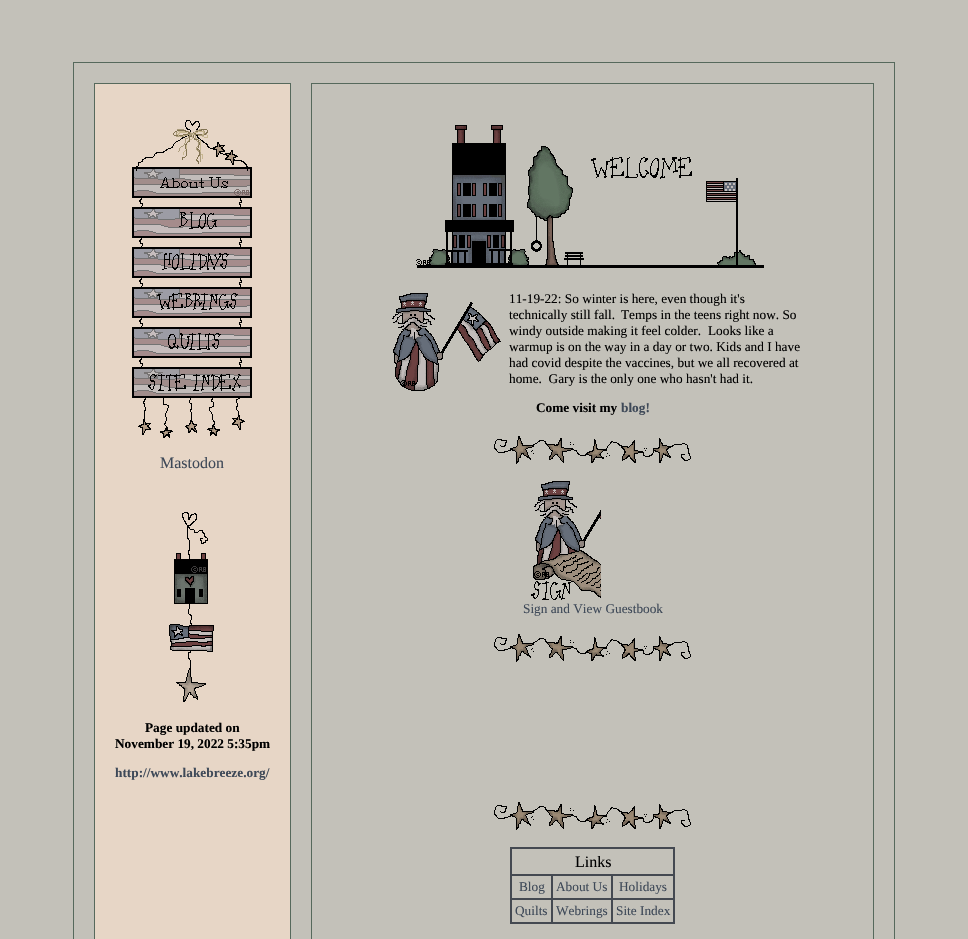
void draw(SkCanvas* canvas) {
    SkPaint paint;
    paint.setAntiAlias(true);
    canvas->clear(0xFFC3C1B9);
    paint.setStyle(SkPaint::kStroke_Style);
    paint.setStrokeWidth(1);
    paint.setColor(0xFF56695C);
    canvas->drawRect(SkRect::MakeXYWH(73.5f, 62.5f, 821, 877), paint);
    paint.setStyle(SkPaint::kFill_Style);
    paint.setColor(0xFFE7D6C6);
    canvas->drawRect(SkRect::MakeXYWH(94.5f, 83.5f, 196, 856), paint);
    paint.setStyle(SkPaint::kStroke_Style);
    paint.setColor(0xFF56695C);
    canvas->drawRect(SkRect::MakeXYWH(94.5f, 83.5f, 196, 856), paint);
    canvas->drawImageRect(SkImages::DeferredFromEncodedData(SkData::MakeFromFileName("img1.png")), SkRect::MakeXYWH(132, 120, 120, 78), SkSamplingOptions());
    canvas->drawImageRect(SkImages::DeferredFromEncodedData(SkData::MakeFromFileName("img2.png")), SkRect::MakeXYWH(132, 198, 120, 40), SkSamplingOptions());
    canvas->drawImageRect(SkImages::DeferredFromEncodedData(SkData::MakeFromFileName("img3.png")), SkRect::MakeXYWH(132, 238, 120, 40), SkSamplingOptions());
    canvas->drawImageRect(SkImages::DeferredFromEncodedData(SkData::MakeFromFileName("img4.png")), SkRect::MakeXYWH(132, 278, 120, 40), SkSamplingOptions());
    canvas->drawImageRect(SkImages::DeferredFromEncodedData(SkData::MakeFromFileName("img5.png")), SkRect::MakeXYWH(132, 318, 120, 40), SkSamplingOptions());
    canvas->drawImageRect(SkImages::DeferredFromEncodedData(SkData::MakeFromFileName("img6.png")), SkRect::MakeXYWH(132, 358, 120, 80), SkSamplingOptions());
    SkFont font1(fontMgr->matchFamilyStyle("Liberation Serif", SkFontStyle::Normal()), 16);
    font1.setSubpixel(true);
    paint.setStyle(SkPaint::kFill_Style);
    paint.setColor(0xFF3E4958);
    canvas->drawString("Mastodon", 160, 468, font1, paint);
    canvas->drawImageRect(SkImages::DeferredFromEncodedData(SkData::MakeFromFileName("img7.png")), SkRect::MakeXYWH(169, 512, 45, 190), SkSamplingOptions());
    SkFont font2(fontMgr->matchFamilyStyle("Liberation Serif", SkFontStyle::Bold()), 13.3f);
    font2.setSubpixel(true);
    paint.setColor(0xFF000000);
    canvas->drawString("Page updated on", 145, 732, font2, paint);
    canvas->drawString("November 19, 2022 5:35pm", 115, 748, font2, paint);
    paint.setColor(0xFF3E4958);
    canvas->drawString("http://www.lakebreeze.org/", 115, 777, font2, paint);
    paint.setStyle(SkPaint::kStroke_Style);
    paint.setColor(0xFF56695C);
    canvas->drawRect(SkRect::MakeXYWH(311.5f, 83.5f, 562, 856), paint);
    canvas->drawImageRect(SkImages::DeferredFromEncodedData(SkData::MakeFromFileName("img8.png")), SkRect::MakeXYWH(416, 125, 348, 143), SkSamplingOptions());
    canvas->drawImageRect(SkImages::DeferredFromEncodedData(SkData::MakeFromFileName("img9.png")), SkRect::MakeXYWH(392, 293, 109, 98), SkSamplingOptions());
    SkFont font3(fontMgr->matchFamilyStyle("Liberation Serif", SkFontStyle::Normal()), 13.3f);
    font3.setSubpixel(true);
    paint.setStyle(SkPaint::kFill_Style);
    paint.setColor(0xFF000000);
    canvas->drawString("11-19-22: So winter is here, even though it's", 509, 303, font3, paint);
    canvas->drawString("technically still fall.", 509, 319, font3, paint);
    canvas->drawString("Temps in the teens right now. So", 621, 319, font3, paint);
    canvas->drawString("windy outside making it feel colder.", 509, 335, font3, paint);
    canvas->drawString("Looks like a", 708, 335, font3, paint);
    canvas->drawString("warmup is on the way in a day or two. Kids and I have", 509, 351, font3, paint);
    canvas->drawString("had covid despite the vaccines, but we all recovered at", 509, 367, font3, paint);
    canvas->drawString("home.  Gary is the only one who hasn't had it.", 509, 383, font3, paint);
    canvas->drawString("Come visit my", 536, 412, font2, paint);
    paint.setColor(0xFF3E4958);
    canvas->drawString("blog!", 621, 412, font2, paint);
    canvas->drawImageRect(SkImages::DeferredFromEncodedData(SkData::MakeFromFileName("img10.png")), SkRect::MakeXYWH(494, 436, 197, 28), SkSamplingOptions());
    canvas->drawImageRect(SkImages::DeferredFromEncodedData(SkData::MakeFromFileName("img11.png")), SkRect::MakeXYWH(531, 481, 70, 119), SkSamplingOptions());
    canvas->drawString("Sign and View Guestbook", 523, 613, font3, paint);
    canvas->drawImageRect(SkImages::DeferredFromEncodedData(SkData::MakeFromFileName("img10.png")), SkRect::MakeXYWH(494, 634, 197, 28), SkSamplingOptions());
    canvas->drawImageRect(SkImages::DeferredFromEncodedData(SkData::MakeFromFileName("img10.png")), SkRect::MakeXYWH(494, 802, 197, 28), SkSamplingOptions());
    paint.setStyle(SkPaint::kStroke_Style);
    paint.setColor(0xFF444951);
    canvas->drawRect(SkRect::MakeXYWH(510.5f, 847.5f, 164, 76), paint);
    canvas->drawRect(SkRect::MakeXYWH(511.5f, 848.5f, 162, 26), paint);
    paint.setStyle(SkPaint::kFill_Style);
    paint.setColor(0xFF000000);
    canvas->drawString("Links", 575, 867, font1, paint);
    paint.setStyle(SkPaint::kStroke_Style);
    paint.setColor(0xFF444951);
    canvas->drawRect(SkRect::MakeXYWH(511.5f, 875.5f, 40, 23), paint);
    paint.setStyle(SkPaint::kFill_Style);
    paint.setColor(0xFF3E4958);
    canvas->drawString("Blog", 519, 891, font3, paint);
    paint.setStyle(SkPaint::kStroke_Style);
    paint.setColor(0xFF444951);
    canvas->drawRect(SkRect::MakeXYWH(552.5f, 875.5f, 59, 23), paint);
    paint.setStyle(SkPaint::kFill_Style);
    paint.setColor(0xFF3E4958);
    canvas->drawString("About Us", 556, 891, font3, paint);
    paint.setStyle(SkPaint::kStroke_Style);
    paint.setColor(0xFF444951);
    canvas->drawRect(SkRect::MakeXYWH(612.5f, 875.5f, 61, 23), paint);
    paint.setStyle(SkPaint::kFill_Style);
    paint.setColor(0xFF3E4958);
    canvas->drawString("Holidays", 619, 891, font3, paint);
    paint.setStyle(SkPaint::kStroke_Style);
    paint.setColor(0xFF444951);
    canvas->drawRect(SkRect::MakeXYWH(511.5f, 899.5f, 40, 23), paint);
    paint.setStyle(SkPaint::kFill_Style);
    paint.setColor(0xFF3E4958);
    canvas->drawString("Quilts", 515, 915, font3, paint);
    paint.setStyle(SkPaint::kStroke_Style);
    paint.setColor(0xFF444951);
    canvas->drawRect(SkRect::MakeXYWH(552.5f, 899.5f, 59, 23), paint);
    paint.setStyle(SkPaint::kFill_Style);
    paint.setColor(0xFF3E4958);
    canvas->drawString("Webrings", 556, 915, font3, paint);
    paint.setStyle(SkPaint::kStroke_Style);
    paint.setColor(0xFF444951);
    canvas->drawRect(SkRect::MakeXYWH(612.5f, 899.5f, 61, 23), paint);
    paint.setStyle(SkPaint::kFill_Style);
    paint.setColor(0xFF3E4958);
    canvas->drawString("Site Index", 616, 915, font3, paint);
}
